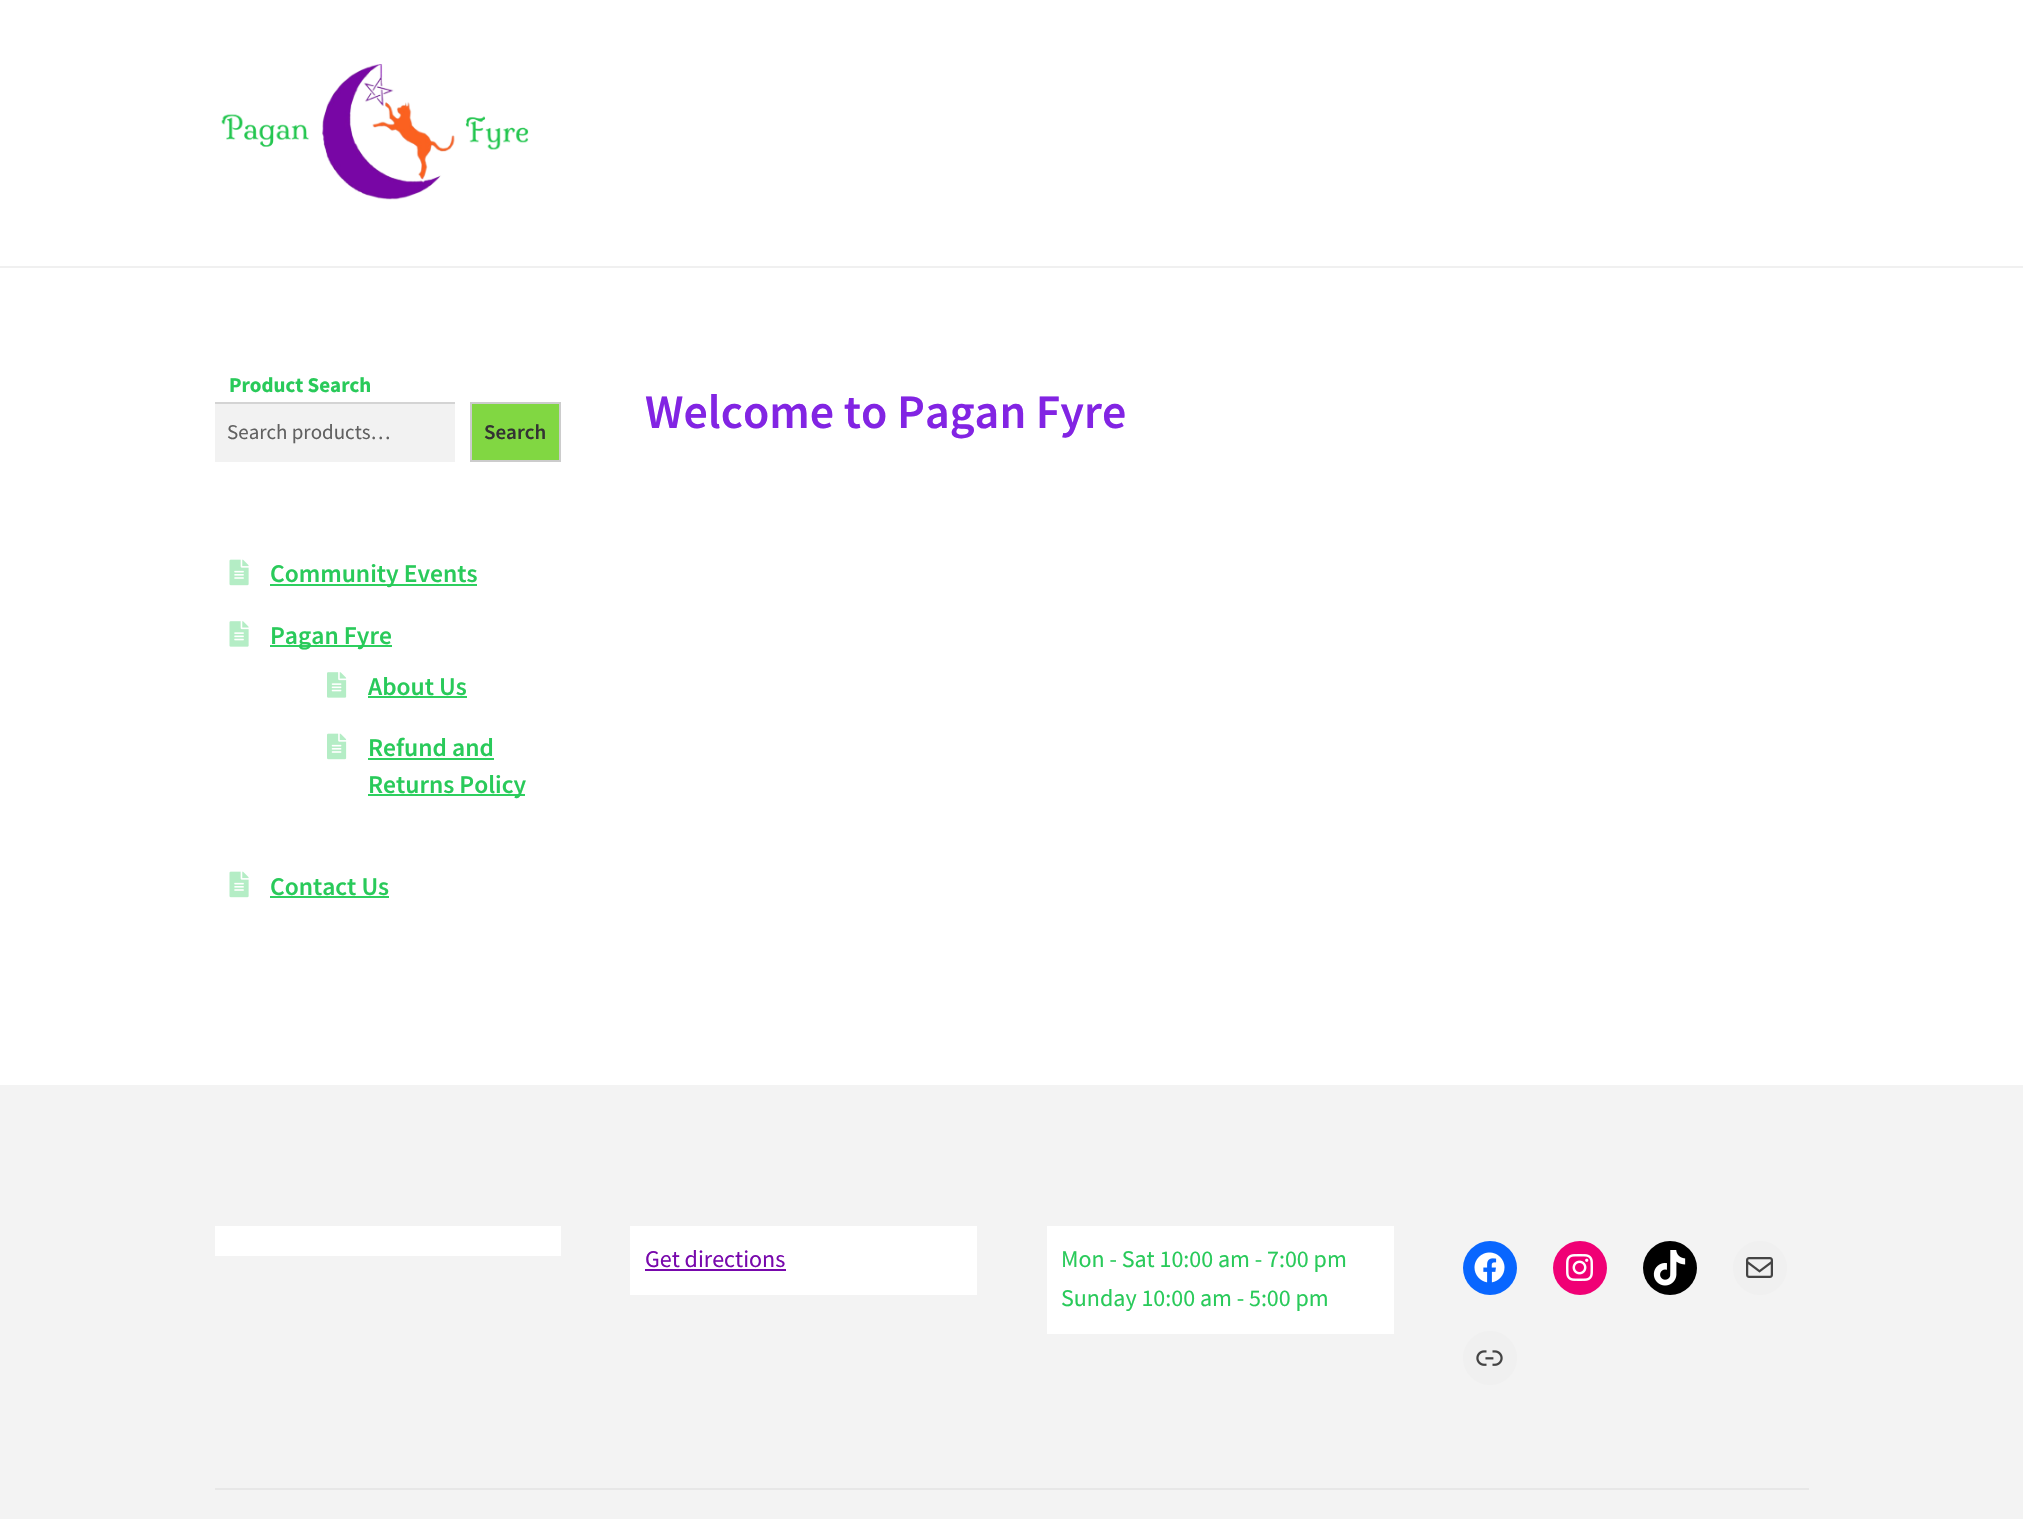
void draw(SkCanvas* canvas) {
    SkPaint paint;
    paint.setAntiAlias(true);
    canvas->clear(0xFFFFFFFF);
    paint.setColor(0xFFF0F0F0);
    canvas->drawRect(SkRect::MakeXYWH(0, 266, 2023, 2), paint);
    canvas->drawImageRect(SkImages::DeferredFromEncodedData(SkData::MakeFromFileName("img1.png")), SkRect::MakeXYWH(221, 64, 308, 136), SkSamplingOptions());
    SkFont font1(fontMgr->matchFamilyStyle("Source Sans Pro", SkFontStyle::Bold()), 21);
    font1.setSubpixel(true);
    paint.setColor(0xFF29CA5A);
    canvas->drawString("Product Search", 229, 392, font1, paint);
    paint.setColor(0xFFF2F2F2);
    canvas->drawRect(SkRect::MakeXYWH(215, 404, 240, 58), paint);
    paint.setColor(0xFFD4D4D4);
    canvas->drawRect(SkRect::MakeXYWH(215, 402, 240, 2), paint);
    SkFont font2(fontMgr->matchFamilyStyle("Source Sans Pro", SkFontStyle::Normal()), 21);
    font2.setSubpixel(true);
    paint.setColor(0xFF616161);
    canvas->drawString("Search products…", 227, 439, font2, paint);
    paint.setColor(0xFF81D742);
    canvas->drawRect(SkRect::MakeXYWH(471, 403, 89, 58), paint);
    paint.setStyle(SkPaint::kStroke_Style);
    paint.setStrokeWidth(2);
    paint.setColor(0xFFCCCCCC);
    canvas->drawRect(SkRect::MakeXYWH(471, 403, 89, 58), paint);
    SkFont font3(fontMgr->matchFamilyStyle("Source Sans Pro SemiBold", SkFontStyle(600, SkFontStyle::kNormal_Width, SkFontStyle::kUpright_Slant)), 21);
    font3.setSubpixel(true);
    paint.setStyle(SkPaint::kFill_Style);
    paint.setColor(0xFF333333);
    canvas->drawString("Search", 484, 439, font3, paint);
    canvas->drawImageRect(SkImages::DeferredFromEncodedData(SkData::MakeFromFileName("img2.png")), SkRect::MakeXYWH(229, 559, 20, 27), SkSamplingOptions());
    paint.setColor(0xFF2ECF5F);
    canvas->drawRect(SkRect::MakeXYWH(270, 584, 207, 2), paint);
    SkFont font4(fontMgr->matchFamilyStyle("Source Sans Pro SemiBold", SkFontStyle(600, SkFontStyle::kNormal_Width, SkFontStyle::kUpright_Slant)), 25.5f);
    font4.setSubpixel(true);
    paint.setColor(0xFF29CA5A);
    canvas->drawString("Community Events", 270, 582, font4, paint);
    canvas->drawImageRect(SkImages::DeferredFromEncodedData(SkData::MakeFromFileName("img3.png")), SkRect::MakeXYWH(229, 621, 20, 26), SkSamplingOptions());
    paint.setColor(0xFF2ECF5F);
    canvas->drawRect(SkRect::MakeXYWH(270, 645, 122, 2), paint);
    paint.setColor(0xFF29CA5A);
    canvas->drawString("Pagan Fyre", 270, 644, font4, paint);
    canvas->drawImageRect(SkImages::DeferredFromEncodedData(SkData::MakeFromFileName("img4.png")), SkRect::MakeXYWH(327, 672, 20, 26), SkSamplingOptions());
    canvas->drawString("About Us", 368, 695, font4, paint);
    paint.setColor(0xFF2ECF5F);
    canvas->drawRect(SkRect::MakeXYWH(368, 696, 99, 2), paint);
    canvas->drawImageRect(SkImages::DeferredFromEncodedData(SkData::MakeFromFileName("img5.png")), SkRect::MakeXYWH(327, 733, 20, 27), SkSamplingOptions());
    paint.setColor(0xFF29CA5A);
    canvas->drawString("Refund and", 368, 756, font4, paint);
    paint.setColor(0xFF2ECF5F);
    canvas->drawRect(SkRect::MakeXYWH(368, 758, 126, 2), paint);
    canvas->drawRect(SkRect::MakeXYWH(368, 794, 157, 2), paint);
    paint.setColor(0xFF29CA5A);
    canvas->drawString("Returns Policy", 368, 793, font4, paint);
    canvas->drawImageRect(SkImages::DeferredFromEncodedData(SkData::MakeFromFileName("img2.png")), SkRect::MakeXYWH(229, 871, 20, 27), SkSamplingOptions());
    canvas->drawString("Contact Us", 270, 895, font4, paint);
    paint.setColor(0xFF2ECF5F);
    canvas->drawRect(SkRect::MakeXYWH(270, 896, 119, 2), paint);
    SkFont font5(fontMgr->matchFamilyStyle("Source Sans Pro SemiBold", SkFontStyle(600, SkFontStyle::kNormal_Width, SkFontStyle::kUpright_Slant)), 48);
    font5.setSubpixel(true);
    paint.setColor(0xFF8224E3);
    canvas->drawString("Welcome to Pagan Fyre", 645, 428, font5, paint);
    paint.setColor(0xFFF3F3F3);
    canvas->drawRect(SkRect::MakeXYWH(0, 1085, 2023, 434), paint);
    paint.setColor(0xFFE7E7E7);
    canvas->drawRect(SkRect::MakeXYWH(215, 1488, 1594, 2), paint);
    paint.setColor(0xFFFFFFFF);
    canvas->drawRect(SkRect::MakeXYWH(215, 1226, 346, 30), paint);
    canvas->drawRect(SkRect::MakeXYWH(630, 1226, 347, 69), paint);
    SkFont font6(fontMgr->matchFamilyStyle("Source Sans Pro", SkFontStyle::Normal()), 24);
    font6.setSubpixel(true);
    paint.setColor(0xFF7808AC);
    canvas->drawString("Get directions", 645, 1267, font6, paint);
    canvas->drawRect(SkRect::MakeXYWH(645, 1269, 141, 2), paint);
    paint.setColor(0xFFFFFFFF);
    canvas->drawRect(SkRect::MakeXYWH(1047, 1226, 347, 108), paint);
    paint.setColor(0xFF29CA5A);
    canvas->drawString("Mon - Sat 10:00 am - 7:00 pm", 1061, 1267, font6, paint);
    canvas->drawString("Sunday 10:00 am - 5:00 pm", 1061, 1306, font6, paint);
    paint.setColor(0xFF0866FF);
    canvas->drawCircle(1490, 1268, 27, paint);
    canvas->drawImageRect(SkImages::DeferredFromEncodedData(SkData::MakeFromFileName("img6.png")), SkRect::MakeXYWH(1474, 1252, 31, 31), SkSamplingOptions());
    paint.setColor(0xFFF00075);
    canvas->drawCircle(1580, 1268, 27, paint);
    canvas->drawImageRect(SkImages::DeferredFromEncodedData(SkData::MakeFromFileName("img7.png")), SkRect::MakeXYWH(1566, 1254, 27, 27), SkSamplingOptions());
    paint.setColor(0xFF000000);
    canvas->drawCircle(1670, 1268, 27, paint);
    canvas->drawImageRect(SkImages::DeferredFromEncodedData(SkData::MakeFromFileName("img8.png")), SkRect::MakeXYWH(1653, 1250, 33, 36), SkSamplingOptions());
    paint.setColor(0xFFF0F0F0);
    canvas->drawCircle(1760, 1268, 27, paint);
    canvas->drawImageRect(SkImages::DeferredFromEncodedData(SkData::MakeFromFileName("img9.png")), SkRect::MakeXYWH(1746, 1257, 27, 21), SkSamplingOptions());
    canvas->drawCircle(1490, 1358, 27, paint);
    canvas->drawImageRect(SkImages::DeferredFromEncodedData(SkData::MakeFromFileName("img10.png")), SkRect::MakeXYWH(1476, 1350, 27, 16), SkSamplingOptions());
}
